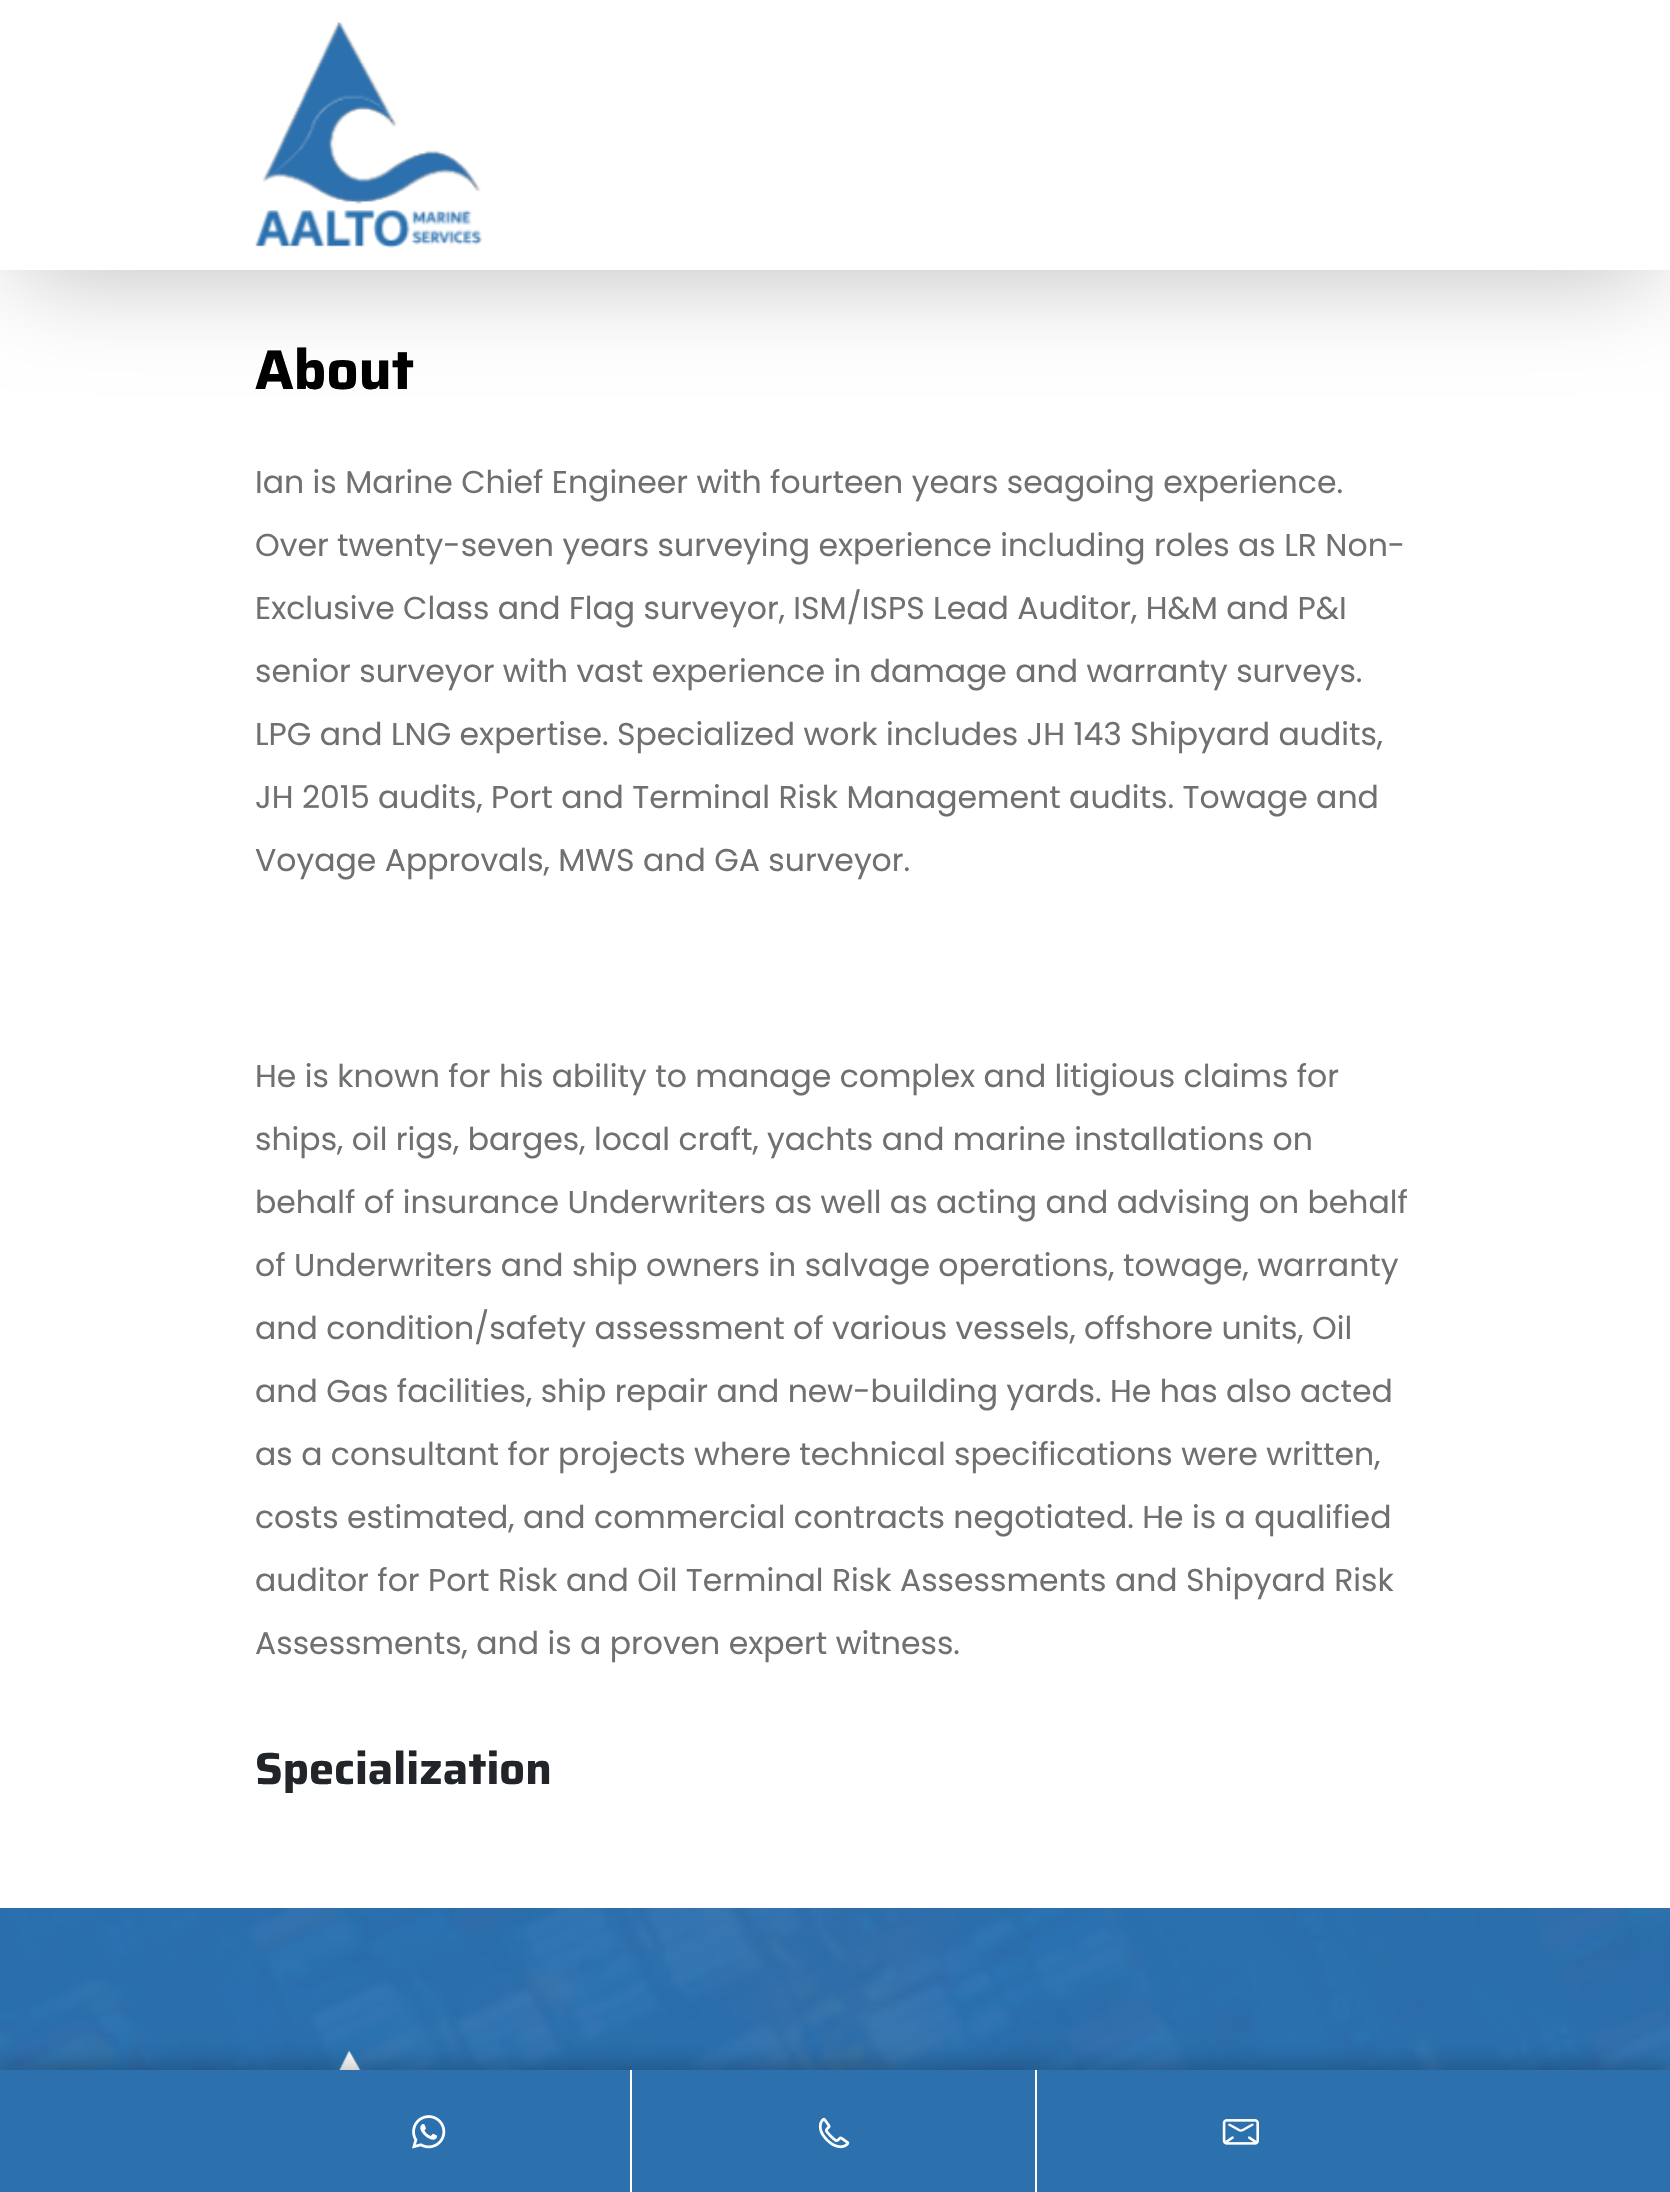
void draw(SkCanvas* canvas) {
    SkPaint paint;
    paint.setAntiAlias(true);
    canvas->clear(0xFFFFFFFF);
    paint.setColor(0x40000000);
    paint.setMaskFilter(SkMaskFilter::MakeBlur(kNormal_SkBlurStyle, 50.5f));
    canvas->drawRect(SkRect::MakeXYWH(18, 41, 1636, 234), paint);
    paint.setMaskFilter(nullptr);
    paint.setColor(0xFFFFFFFF);
    canvas->drawRect(SkRect::MakeXYWH(0, 0, 1670, 270), paint);
    canvas->drawImageRect(SkImages::DeferredFromEncodedData(SkData::MakeFromFileName("img1.png")), SkRect::MakeXYWH(255, 22, 227, 226), SkSamplingOptions());
    SkFont font1(fontMgr->matchFamilyStyle("Saira", SkFontStyle::Bold()), 56);
    font1.setSubpixel(true);
    paint.setColor(0xFF000000);
    canvas->drawString("About", 255, 389, font1, paint);
    SkFont font2(fontMgr->matchFamilyStyle("Poppins", SkFontStyle::Normal()), 31.5f);
    font2.setSubpixel(true);
    paint.setColor(0xFF707070);
    canvas->drawString("Ian is Marine Chief Engineer with fourteen years seagoing experience.", 255, 493, font2, paint);
    canvas->drawString("Over twenty-seven years surveying experience including roles as LR Non-", 255, 556, font2, paint);
    canvas->drawString("Exclusive Class and Flag surveyor, ISM/ISPS Lead Auditor, H&M and P&I", 255, 619, font2, paint);
    canvas->drawString("senior surveyor with vast experience in damage and warranty surveys.", 255, 682, font2, paint);
    canvas->drawString("LPG and LNG expertise. Specialized work includes JH 143 Shipyard audits,", 255, 745, font2, paint);
    canvas->drawString("JH 2015 audits, Port and Terminal Risk Management audits. Towage and", 255, 808, font2, paint);
    canvas->drawString("Voyage Approvals, MWS and GA surveyor.", 255, 871, font2, paint);
    canvas->drawString("He is known for his ability to manage complex and litigious claims for", 255, 1087, font2, paint);
    canvas->drawString("ships, oil rigs, barges, local craft, yachts and marine installations on", 255, 1150, font2, paint);
    canvas->drawString("behalf of insurance Underwriters as well as acting and advising on behalf", 255, 1213, font2, paint);
    canvas->drawString("of Underwriters and ship owners in salvage operations, towage, warranty", 255, 1276, font2, paint);
    canvas->drawString("and condition/safety assessment of various vessels, offshore units, Oil", 255, 1339, font2, paint);
    canvas->drawString("and Gas facilities, ship repair and new-building yards. He has also acted", 255, 1402, font2, paint);
    canvas->drawString("as a consultant for projects where technical specifications were written,", 255, 1465, font2, paint);
    canvas->drawString("costs estimated, and commercial contracts negotiated. He is a qualified", 255, 1528, font2, paint);
    canvas->drawString("auditor for Port Risk and Oil Terminal Risk Assessments and Shipyard Risk", 255, 1591, font2, paint);
    canvas->drawString("Assessments, and is a proven expert witness.", 255, 1654, font2, paint);
    SkFont font3(fontMgr->matchFamilyStyle("Saira", SkFontStyle::Bold()), 45);
    font3.setSubpixel(true);
    paint.setColor(0xFF212529);
    canvas->drawString("Specialization", 255, 1784, font3, paint);
    canvas->drawImageRect(SkImages::DeferredFromEncodedData(SkData::MakeFromFileName("img2.png")), SkRect::MakeXYWH(0, 1908, 1670, 162), SkSamplingOptions());
    canvas->drawImageRect(SkImages::DeferredFromEncodedData(SkData::MakeFromFileName("img3.png")), SkRect::MakeXYWH(338, 2050, 23, 20), SkSamplingOptions());
    paint.setColor(0x42000000);
    paint.setMaskFilter(SkMaskFilter::MakeBlur(kNormal_SkBlurStyle, 11));
    canvas->drawRect(SkRect::MakeXYWH(0, 2066, 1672, 123), paint);
    paint.setMaskFilter(nullptr);
    paint.setColor(0xFF2C70AE);
    canvas->drawRect(SkRect::MakeXYWH(0, 2070, 1670, 122), paint);
    paint.setColor(0xFFFFFFFF);
    canvas->drawRect(SkRect::MakeXYWH(630, 2070, 2, 122), paint);
    canvas->drawImageRect(SkImages::DeferredFromEncodedData(SkData::MakeFromFileName("img4.png")), SkRect::MakeXYWH(412, 2115, 34, 34), SkSamplingOptions());
    canvas->drawRect(SkRect::MakeXYWH(1035, 2070, 2, 122), paint);
    canvas->drawImageRect(SkImages::DeferredFromEncodedData(SkData::MakeFromFileName("img5.png")), SkRect::MakeXYWH(819, 2117, 31, 32), SkSamplingOptions());
    canvas->drawImageRect(SkImages::DeferredFromEncodedData(SkData::MakeFromFileName("img6.png")), SkRect::MakeXYWH(1222, 2119, 37, 26), SkSamplingOptions());
}
